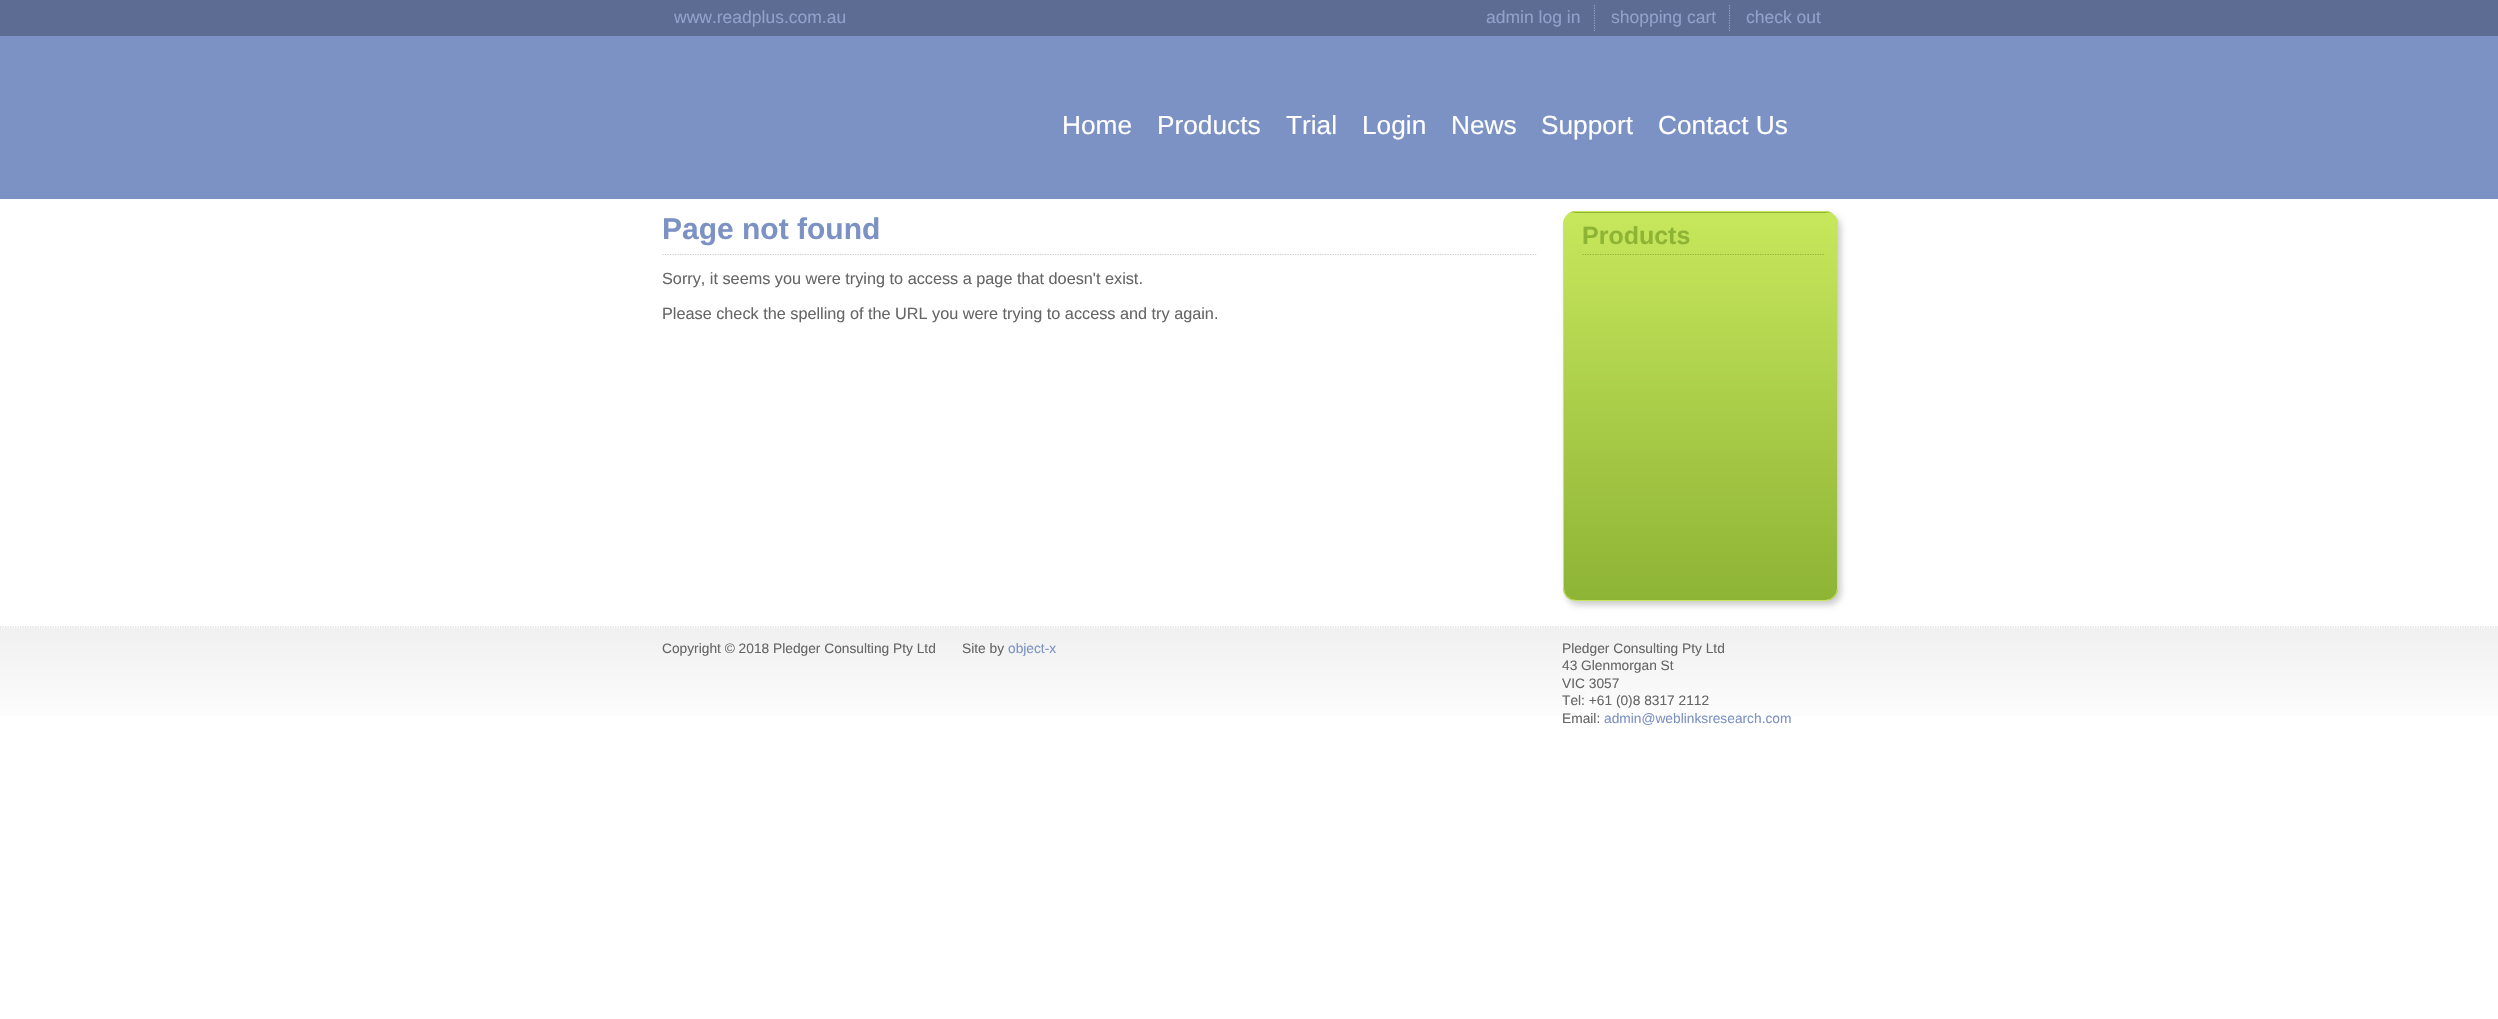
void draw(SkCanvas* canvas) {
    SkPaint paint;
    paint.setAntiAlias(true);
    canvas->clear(0xFFFFFFFF);
    paint.setColor(0xFF5C6C92);
    canvas->drawRect(SkRect::MakeXYWH(0, 0, 2498, 36), paint);
    SkFont font1(fontMgr->matchFamilyStyle("Liberation Sans", SkFontStyle::Normal()), 17.5f);
    font1.setSubpixel(true);
    paint.setColor(0xFF91A2CA);
    canvas->drawString("www.readplus.com.au", 674, 23, font1, paint);
    paint.setStyle(SkPaint::kStroke_Style);
    paint.setStrokeWidth(1.2f);
    paint.setPathEffect(SkDashPathEffect::Make({{1.25f, 1.25f}}, 0));
    canvas->drawPath(SkPathBuilder().moveTo(1594.5f, 5).lineTo(1594.5f, 31).detach(), paint);
    paint.setPathEffect(nullptr);
    paint.setStyle(SkPaint::kFill_Style);
    canvas->drawString("admin log in", 1486, 23, font1, paint);
    paint.setStyle(SkPaint::kStroke_Style);
    paint.setPathEffect(SkDashPathEffect::Make({{1.25f, 1.25f}}, 0));
    canvas->drawPath(SkPathBuilder().moveTo(1729.5f, 5).lineTo(1729.5f, 31).detach(), paint);
    paint.setPathEffect(nullptr);
    paint.setStyle(SkPaint::kFill_Style);
    canvas->drawString("shopping cart", 1611, 23, font1, paint);
    canvas->drawString("check out", 1746, 23, font1, paint);
    paint.setColor(0xFF7C92C5);
    canvas->drawRect(SkRect::MakeXYWH(0, 36, 2498, 163), paint);
    SkFont font2(fontMgr->matchFamilyStyle("Liberation Sans", SkFontStyle::Normal()), 26.25f);
    font2.setSubpixel(true);
    paint.setColor(0xFFFFFFFF);
    canvas->drawString("Home", 1062, 134, font2, paint);
    canvas->drawString("Products", 1157, 134, font2, paint);
    canvas->drawString("Trial", 1286, 134, font2, paint);
    canvas->drawString("Login", 1362, 134, font2, paint);
    canvas->drawString("News", 1451, 134, font2, paint);
    canvas->drawString("Support", 1541, 134, font2, paint);
    canvas->drawString("Contact Us", 1658, 134, font2, paint);
    paint.setStyle(SkPaint::kStroke_Style);
    paint.setColor(0xFFCCCCCC);
    paint.setPathEffect(SkDashPathEffect::Make({{1.25f, 1.25f}}, 0));
    canvas->drawPath(SkPathBuilder().moveTo(662.5f, 254.5f).lineTo(1537.5f, 254.5f).detach(), paint);
    paint.setPathEffect(nullptr);
    SkFont font3(fontMgr->matchFamilyStyle("Liberation Sans", SkFontStyle::Bold()), 30);
    font3.setSubpixel(true);
    paint.setStyle(SkPaint::kFill_Style);
    paint.setColor(0xFF7C92C5);
    canvas->drawString("Page not found", 662, 239, font3, paint);
    SkFont font4(fontMgr->matchFamilyStyle("Liberation Sans", SkFontStyle::Normal()), 16.25f);
    font4.setSubpixel(true);
    paint.setColor(0xFF666666);
    canvas->drawString("Sorry, it seems you were trying to access a page that doesn't exist.", 662, 284, font4, paint);
    canvas->drawString("Please check the spelling of the URL you were trying to access and try again.", 662, 319, font4, paint);
    paint.setColor(0xFFCCCCCC);
    paint.setMaskFilter(SkMaskFilter::MakeBlur(kNormal_SkBlurStyle, 3));
    canvas->drawRoundRect(SkRect::MakeXYWH(1566, 215, 275, 390), 13, 13, paint);
    paint.setMaskFilter(nullptr);
    canvas->save();
    canvas->clipPath(SkPathBuilder().moveTo(1576, 211).lineTo(1825, 211).cubicTo(1832, 211, 1838, 217, 1838, 224).lineTo(1838, 588).cubicTo(1838, 595, 1832, 601, 1825, 601).lineTo(1576, 601).cubicTo(1569, 601, 1563, 595, 1563, 588).lineTo(1563, 224).cubicTo(1563, 217, 1569, 211, 1576, 211).close().detach(), true);
    {
        const SkColor colors[] = {0xFFC7E75C, 0xFF8EB436};
        const float stops[] = {0, 1};
        const SkPoint ends[] = {{1564, -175}, {1564, 213}};
        paint.setShader(SkGradientShader::MakeLinear(ends, colors, stops, 2, SkTileMode::kClamp));
        paint.setAlpha(255);
    }
    canvas->drawRect(SkRect::MakeXYWH(1563, 211, 275, 2), paint);
    {
        const SkColor colors[] = {0xFFC7E75C, 0xFF8EB436};
        const float stops[] = {0, 1};
        const SkPoint ends[] = {{1564, 213}, {1564, 600}};
        paint.setShader(SkGradientShader::MakeLinear(ends, colors, stops, 2, SkTileMode::kClamp));
        paint.setAlpha(255);
    }
    canvas->drawRect(SkRect::MakeXYWH(1563, 213, 275, 387), paint);
    canvas->restore();
    paint.setStyle(SkPaint::kStroke_Style);
    paint.setStrokeWidth(1);
    paint.setShader(nullptr);
    paint.setColor(0xFFC7E75C);
    canvas->drawRoundRect(SkRect::MakeXYWH(1563.5f, 211.5f, 274, 389), 12.5f, 12.5f, paint);
    paint.setStrokeWidth(1.2f);
    paint.setColor(0xFF8EB436);
    paint.setPathEffect(SkDashPathEffect::Make({{1.25f, 1.25f}}, 0));
    canvas->drawPath(SkPathBuilder().moveTo(1582.5f, 254.5f).lineTo(1824, 254.5f).detach(), paint);
    paint.setPathEffect(nullptr);
    SkFont font5(fontMgr->matchFamilyStyle("Liberation Sans", SkFontStyle::Bold()), 25);
    font5.setSubpixel(true);
    paint.setStyle(SkPaint::kFill_Style);
    canvas->drawString("Products", 1582, 244, font5, paint);
    {
        const SkColor colors[] = {0xFFF0F0F0, 0xFFFFFFFF};
        const float stops[] = {0, 1};
        const SkPoint ends[] = {{0, 628}, {0, 734}};
        paint.setShader(SkGradientShader::MakeLinear(ends, colors, stops, 2, SkTileMode::kClamp));
        paint.setAlpha(255);
    }
    canvas->drawRect(SkRect::MakeXYWH(0, 628, 2498, 88), paint);
    paint.setStyle(SkPaint::kStroke_Style);
    paint.setShader(nullptr);
    paint.setColor(0xFFCCCCCC);
    paint.setPathEffect(SkDashPathEffect::Make({{1.25f, 1.25f}}, 0));
    canvas->drawPath(SkPathBuilder().moveTo(0, 627).lineTo(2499, 627).detach(), paint);
    paint.setPathEffect(nullptr);
    SkFont font6(fontMgr->matchFamilyStyle("Liberation Sans", SkFontStyle::Normal()), 13.75f);
    font6.setSubpixel(true);
    paint.setStyle(SkPaint::kFill_Style);
    paint.setColor(0xFF666666);
    canvas->drawString("Copyright © 2018 Pledger Consulting Pty Ltd", 662, 653, font6, paint);
    canvas->drawString("Site by", 962, 653, font6, paint);
    paint.setColor(0xFF7C92C5);
    canvas->drawString("object-x", 1008, 653, font6, paint);
    paint.setColor(0xFF666666);
    canvas->drawString("Pledger Consulting Pty Ltd", 1562, 653, font6, paint);
    canvas->drawString("43 Glenmorgan St", 1562, 670, font6, paint);
    canvas->drawString("VIC 3057", 1562, 688, font6, paint);
    canvas->drawString("Tel: +61 (0)8 8317 2112", 1562, 705, font6, paint);
    canvas->drawString("Email:", 1562, 723, font6, paint);
    paint.setColor(0xFF7C92C5);
    canvas->drawString("admin@weblinksresearch.com", 1604, 723, font6, paint);
}
